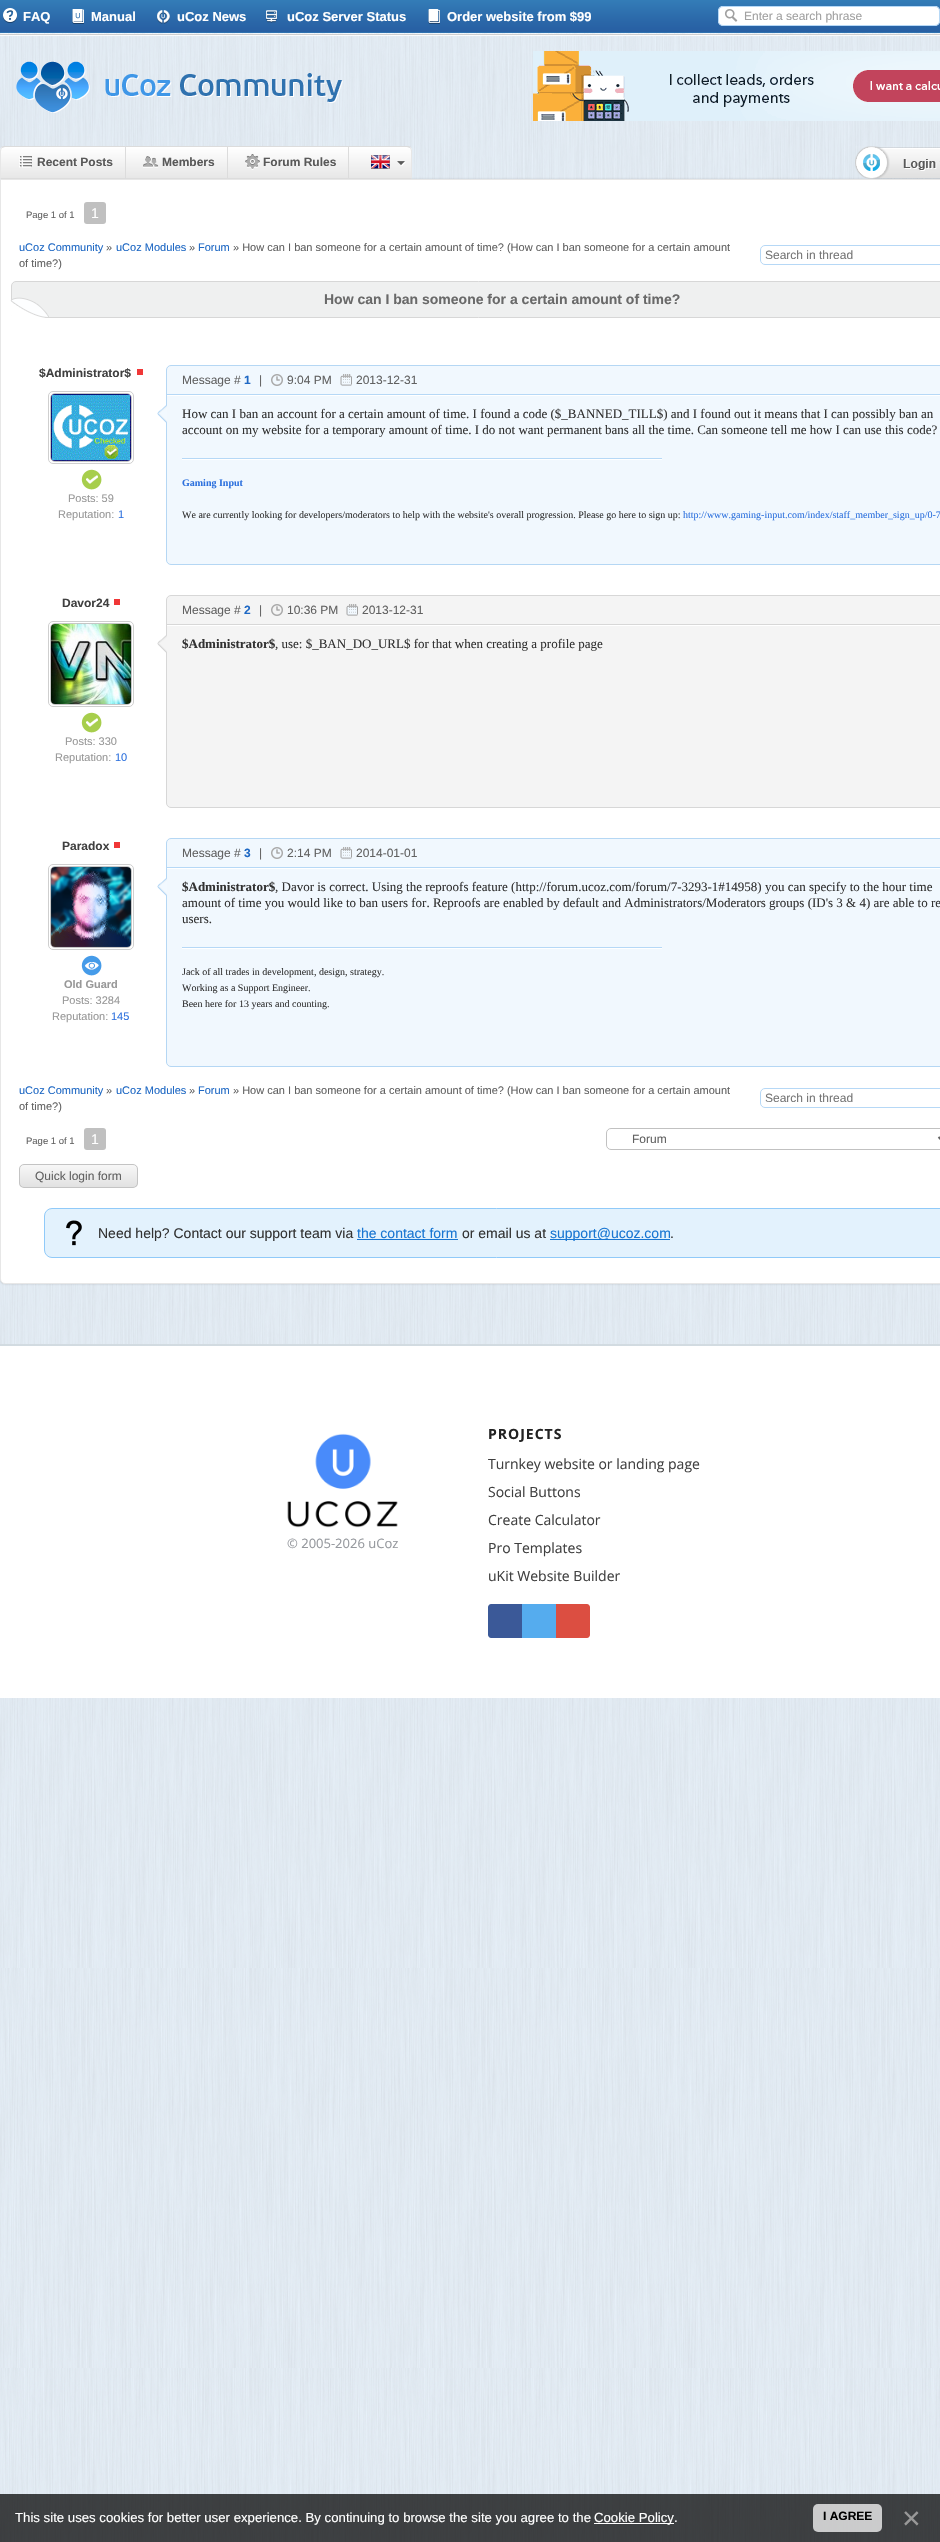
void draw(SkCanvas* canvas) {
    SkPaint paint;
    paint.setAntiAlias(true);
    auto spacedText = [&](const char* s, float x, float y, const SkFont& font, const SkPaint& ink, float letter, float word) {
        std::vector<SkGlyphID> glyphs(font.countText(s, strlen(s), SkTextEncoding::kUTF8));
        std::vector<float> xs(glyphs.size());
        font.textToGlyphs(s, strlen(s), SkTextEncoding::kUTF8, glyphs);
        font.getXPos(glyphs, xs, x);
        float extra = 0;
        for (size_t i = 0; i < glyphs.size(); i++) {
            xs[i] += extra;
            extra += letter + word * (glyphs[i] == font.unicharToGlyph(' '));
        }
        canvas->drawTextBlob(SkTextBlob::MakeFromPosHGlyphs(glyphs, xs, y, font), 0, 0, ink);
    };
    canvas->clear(0xFFFFFFFF);
    canvas->drawImageRect(SkImages::DeferredFromEncodedData(SkData::MakeFromFileName("img1.png")), SkRect::MakeXYWH(0, 36, 940, 2506), SkSamplingOptions());
    canvas->drawImageRect(SkImages::DeferredFromEncodedData(SkData::MakeFromFileName("img2.png")), SkRect::MakeXYWH(0, 0, 940, 36), SkSamplingOptions());
    canvas->drawImageRect(SkImages::DeferredFromEncodedData(SkData::MakeFromFileName("img3.png")), SkRect::MakeXYWH(3, 8, 14, 15), SkSamplingOptions());
    SkFont font1(fontMgr->matchFamilyStyle("Liberation Sans", SkFontStyle::Bold()), 13);
    font1.setSubpixel(true);
    paint.setColor(0xFFFFFFFF);
    canvas->drawString("FAQ", 23, 21, font1, paint);
    canvas->drawImageRect(SkImages::DeferredFromEncodedData(SkData::MakeFromFileName("img4.png")), SkRect::MakeXYWH(72, 9, 12, 15), SkSamplingOptions());
    canvas->drawString("Manual", 91, 21, font1, paint);
    canvas->drawImageRect(SkImages::DeferredFromEncodedData(SkData::MakeFromFileName("img5.png")), SkRect::MakeXYWH(157, 10, 13, 14), SkSamplingOptions());
    canvas->drawString("uCoz News", 177, 21, font1, paint);
    canvas->drawImageRect(SkImages::DeferredFromEncodedData(SkData::MakeFromFileName("img6.png")), SkRect::MakeXYWH(266, 10, 11, 13), SkSamplingOptions());
    canvas->drawString("uCoz Server Status", 287, 21, font1, paint);
    canvas->drawImageRect(SkImages::DeferredFromEncodedData(SkData::MakeFromFileName("img7.png")), SkRect::MakeXYWH(428, 9, 12, 15), SkSamplingOptions());
    canvas->drawString("Order website from $99", 447, 21, font1, paint);
    canvas->drawRoundRect(SkRect::MakeXYWH(718, 6, 222, 20), 5, 5, paint);
    canvas->drawImageRect(SkImages::DeferredFromEncodedData(SkData::MakeFromFileName("img8.png")), SkRect::MakeXYWH(724, 9, 14, 13), SkSamplingOptions());
    paint.setStyle(SkPaint::kStroke_Style);
    paint.setStrokeWidth(1);
    paint.setColor(0xFFB6D8F6);
    canvas->drawRoundRect(SkRect::MakeXYWH(718.5f, 6.5f, 221, 19), 4.5f, 4.5f, paint);
    SkFont font2(fontMgr->matchFamilyStyle("Liberation Sans", SkFontStyle::Normal()), 12);
    font2.setSubpixel(true);
    paint.setStyle(SkPaint::kFill_Style);
    paint.setColor(0xFFA1A1A1);
    canvas->drawString("Enter a search phrase", 744, 20, font2, paint);
    canvas->drawImageRect(SkImages::DeferredFromEncodedData(SkData::MakeFromFileName("img9.png")), SkRect::MakeXYWH(16, 61, 327, 52), SkSamplingOptions());
    canvas->drawImageRect(SkImages::DeferredFromEncodedData(SkData::MakeFromFileName("img10.png")), SkRect::MakeXYWH(533, 51, 407, 70), SkSamplingOptions());
    paint.setColor(0x2E000000);
    paint.setMaskFilter(SkMaskFilter::MakeBlur(kNormal_SkBlurStyle, 1));
    canvas->drawRoundRect(SkRect::MakeXYWH(0, 179, 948, 1105), 5, 5, paint);
    paint.setMaskFilter(nullptr);
    canvas->save();
    canvas->clipPath(SkPathBuilder().moveTo(5, 146).lineTo(126, 146).lineTo(126, 179).lineTo(0, 179).lineTo(0, 151).cubicTo(0, 148, 2, 146, 5, 146).close().detach(), true);
    {
        const SkColor colors[] = {0xFFFFFFFF, 0xFFE7E7E7};
        const float stops[] = {0, 1};
        const SkPoint ends[] = {{63, 147}, {63, 178}};
        paint.setShader(SkGradientShader::MakeLinear(ends, colors, stops, 2, SkTileMode::kClamp));
        paint.setAlpha(255);
    }
    canvas->drawRect(SkRect::MakeXYWH(0, 147, 125, 31), paint);
    canvas->restore();
    paint.setShader(nullptr);
    paint.setColor(0xFFDCDCDC);
    canvas->drawPath(SkPathBuilder().moveTo(5, 146).cubicTo(4, 146, 2, 146, 1, 147).lineTo(2, 148).lineTo(5, 147).lineTo(125, 147).lineTo(126, 146).close().detach(), paint);
    canvas->drawPath(SkPathBuilder().moveTo(126, 146).lineTo(125, 147).lineTo(125, 178).lineTo(126, 179).close().detach(), paint);
    canvas->drawPath(SkPathBuilder().moveTo(126, 179).lineTo(125, 178).lineTo(1, 178).lineTo(0, 179).close().detach(), paint);
    paint.setColor(0xFFE7E7E7);
    canvas->drawPath(SkPathBuilder().moveTo(0, 179).lineTo(1, 178).lineTo(1, 151).cubicTo(1, 150, 1.5f, 149, 2, 148).lineTo(1.5f, 147.5f).cubicTo(0.5f, 148, 0, 149.5f, 0, 151).close().detach(), paint);
    canvas->drawImageRect(SkImages::DeferredFromEncodedData(SkData::MakeFromFileName("img11.png")), SkRect::MakeXYWH(19, 156, 13, 12), SkSamplingOptions());
    SkFont font3(fontMgr->matchFamilyStyle("Liberation Sans", SkFontStyle::Bold()), 12);
    font3.setSubpixel(true);
    paint.setColor(0xFF595959);
    canvas->drawString("Recent Posts", 37, 166, font3, paint);
    {
        const SkColor colors[] = {0xFFFFFFFF, 0xFFE7E7E7};
        const float stops[] = {0, 1};
        const SkPoint ends[] = {{177, 147}, {177, 178}};
        paint.setShader(SkGradientShader::MakeLinear(ends, colors, stops, 2, SkTileMode::kClamp));
        paint.setAlpha(255);
    }
    canvas->drawRect(SkRect::MakeXYWH(126, 147, 101, 31), paint);
    paint.setShader(nullptr);
    paint.setColor(0xFFDCDCDC);
    canvas->drawRect(SkRect::MakeXYWH(126, 146, 223, 1), paint);
    canvas->drawRect(SkRect::MakeXYWH(227, 146, 1, 33), paint);
    canvas->drawRect(SkRect::MakeXYWH(126, 178, 102, 1), paint);
    canvas->drawImageRect(SkImages::DeferredFromEncodedData(SkData::MakeFromFileName("img12.png")), SkRect::MakeXYWH(143, 156, 16, 12), SkSamplingOptions());
    paint.setColor(0xFF595959);
    canvas->drawString("Members", 162, 166, font3, paint);
    {
        const SkColor colors[] = {0xFFFFFFFF, 0xFFE7E7E7};
        const float stops[] = {0, 1};
        const SkPoint ends[] = {{288, 147}, {288, 178}};
        paint.setShader(SkGradientShader::MakeLinear(ends, colors, stops, 2, SkTileMode::kClamp));
        paint.setAlpha(255);
    }
    canvas->drawRect(SkRect::MakeXYWH(228, 147, 120, 31), paint);
    paint.setShader(nullptr);
    paint.setColor(0xFFDCDCDC);
    canvas->drawRect(SkRect::MakeXYWH(348, 146, 1, 33), paint);
    canvas->drawRect(SkRect::MakeXYWH(228, 178, 121, 1), paint);
    canvas->drawImageRect(SkImages::DeferredFromEncodedData(SkData::MakeFromFileName("img13.png")), SkRect::MakeXYWH(245, 154, 15, 16), SkSamplingOptions());
    paint.setColor(0xFF595959);
    canvas->drawString("Forum Rules", 263, 166, font3, paint);
    canvas->save();
    canvas->clipPath(SkPathBuilder().moveTo(349, 146).lineTo(407, 146).cubicTo(410, 146, 412, 148, 412, 151).lineTo(412, 179).lineTo(349, 179).close().detach(), true);
    {
        const SkColor colors[] = {0xFFFFFFFF, 0xFFE7E7E7};
        const float stops[] = {0, 1};
        const SkPoint ends[] = {{380, 147}, {380, 178}};
        paint.setShader(SkGradientShader::MakeLinear(ends, colors, stops, 2, SkTileMode::kClamp));
        paint.setAlpha(255);
    }
    canvas->drawRect(SkRect::MakeXYWH(349, 147, 63, 31), paint);
    canvas->restore();
    paint.setShader(nullptr);
    paint.setColor(0xFFDCDCDC);
    canvas->drawPath(SkPathBuilder().moveTo(349, 146).lineTo(349, 147).lineTo(407, 147).lineTo(410, 148).lineTo(411, 147).cubicTo(410, 146, 408, 146, 407, 146).close().detach(), paint);
    paint.setColor(0xFFE7E7E7);
    canvas->drawPath(SkPathBuilder().moveTo(411, 178).lineTo(411, 151).cubicTo(411, 150, 410.5f, 149, 410, 148).lineTo(410.5f, 147.5f).cubicTo(411.5f, 148, 412, 149.5f, 412, 151).lineTo(412, 179).close().detach(), paint);
    paint.setColor(0xFFDCDCDC);
    canvas->drawPath(SkPathBuilder().moveTo(412, 179).lineTo(411, 178).lineTo(349, 178).lineTo(349, 179).close().detach(), paint);
    canvas->drawImageRect(SkImages::DeferredFromEncodedData(SkData::MakeFromFileName("img14.png")), SkRect::MakeXYWH(371, 155, 19, 14), SkSamplingOptions());
    canvas->drawImageRect(SkImages::DeferredFromEncodedData(SkData::MakeFromFileName("img15.png")), SkRect::MakeXYWH(397, 161, 9, 5), SkSamplingOptions());
    canvas->drawImageRect(SkImages::DeferredFromEncodedData(SkData::MakeFromFileName("img16.png")), SkRect::MakeXYWH(855, 146, 85, 33), SkSamplingOptions());
    paint.setColor(0xFFFFFFFF);
    canvas->drawPath(SkPathBuilder().moveTo(0.5f, 179.5f).lineTo(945.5f, 179.5f).lineTo(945.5f, 1279).cubicTo(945.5f, 1281.5f, 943.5f, 1283.5f, 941, 1283.5f).lineTo(5, 1283.5f).cubicTo(2.5f, 1283.5f, 0.5f, 1281.5f, 0.5f, 1279).close().detach(), paint);
    paint.setStyle(SkPaint::kStroke_Style);
    paint.setColor(0xFFE7E7E7);
    canvas->drawPath(SkPathBuilder().moveTo(0.5f, 179.5f).lineTo(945.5f, 179.5f).lineTo(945.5f, 1279).cubicTo(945.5f, 1281.5f, 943.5f, 1283.5f, 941, 1283.5f).lineTo(5, 1283.5f).cubicTo(2.5f, 1283.5f, 0.5f, 1281.5f, 0.5f, 1279).close().detach(), paint);
    SkFont font4(fontMgr->matchFamilyStyle("Liberation Sans", SkFontStyle::Normal()), 9.5f);
    font4.setSubpixel(true);
    paint.setStyle(SkPaint::kFill_Style);
    paint.setColor(0xFF616161);
    canvas->drawString("Page 1 of 1", 26, 218, font4, paint);
    paint.setColor(0xFFC0C0C0);
    canvas->drawRoundRect(SkRect::MakeXYWH(84, 202, 22, 22), 3, 3, paint);
    SkFont font5(fontMgr->matchFamilyStyle("Liberation Sans", SkFontStyle::Normal()), 14);
    font5.setSubpixel(true);
    paint.setColor(0xFFFFFFFF);
    canvas->drawString("1", 91, 218, font5, paint);
    SkFont font6(fontMgr->matchFamilyStyle("Liberation Sans", SkFontStyle::Normal()), 11);
    font6.setSubpixel(true);
    paint.setColor(0xFF1E68C4);
    canvas->drawString("uCoz Community", 19, 251, font6, paint);
    paint.setColor(0xFF616161);
    canvas->drawString("»", 106, 251, font6, paint);
    paint.setColor(0xFF1E68C4);
    canvas->drawString("uCoz Modules", 116, 251, font6, paint);
    paint.setColor(0xFF616161);
    canvas->drawString("»", 189, 251, font6, paint);
    paint.setColor(0xFF1E68C4);
    canvas->drawString("Forum", 198, 251, font6, paint);
    paint.setColor(0xFF616161);
    canvas->drawString("» How can I ban someone for a certain amount of time? (How can I ban someone for a certain amount", 233, 251, font6, paint);
    canvas->drawString("of time?)", 19, 267, font6, paint);
    paint.setStyle(SkPaint::kStroke_Style);
    paint.setColor(0xFFB6D8F6);
    canvas->drawRoundRect(SkRect::MakeXYWH(760.5f, 245.5f, 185, 19), 4.5f, 4.5f, paint);
    paint.setStyle(SkPaint::kFill_Style);
    paint.setColor(0xFF757575);
    canvas->drawString("Search in thread", 765, 259, font2, paint);
    paint.setColor(0xFFEFF0F0);
    canvas->drawRoundRect(SkRect::MakeXYWH(11.5f, 281.5f, 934, 36), 4.5f, 4.5f, paint);
    paint.setStyle(SkPaint::kStroke_Style);
    paint.setColor(0xFFD7D7D7);
    canvas->drawRoundRect(SkRect::MakeXYWH(11.5f, 281.5f, 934, 36), 4.5f, 4.5f, paint);
    canvas->drawImageRect(SkImages::DeferredFromEncodedData(SkData::MakeFromFileName("img17.png")), SkRect::MakeXYWH(10, 297, 39, 21), SkSamplingOptions());
    SkFont font7(fontMgr->matchFamilyStyle("Liberation Sans", SkFontStyle::Bold()), 14);
    font7.setSubpixel(true);
    paint.setStyle(SkPaint::kFill_Style);
    paint.setColor(0xFF696969);
    canvas->drawString("How can I ban someone for a certain amount of time?", 324, 304, font7, paint);
    paint.setColor(0xFF404040);
    canvas->drawString("$Administrator$", 39, 377, font3, paint);
    paint.setColor(0xFFF03737);
    canvas->drawRect(SkRect::MakeXYWH(137, 369, 6, 6), paint);
    paint.setStyle(SkPaint::kStroke_Style);
    paint.setColor(0xFFCFCFCF);
    canvas->drawRoundRect(SkRect::MakeXYWH(48.5f, 391.5f, 85, 72), 4.5f, 4.5f, paint);
    paint.setColor(0xFFC6C6C6);
    canvas->drawRoundRect(SkRect::MakeXYWH(50.5f, 393.5f, 81, 68), 4.5f, 4.5f, paint);
    canvas->drawImageRect(SkImages::DeferredFromEncodedData(SkData::MakeFromFileName("img18.png")), SkRect::MakeXYWH(51, 394, 80, 67), SkSamplingOptions());
    canvas->drawImageRect(SkImages::DeferredFromEncodedData(SkData::MakeFromFileName("img19.png")), SkRect::MakeXYWH(81, 469, 21, 21), SkSamplingOptions());
    paint.setStyle(SkPaint::kFill_Style);
    paint.setColor(0xFF989898);
    canvas->drawString("Posts: 59", 68, 502, font6, paint);
    canvas->drawString("Reputation:", 58, 518, font6, paint);
    paint.setColor(0xFF2D71DE);
    canvas->drawString("1", 118, 518, font6, paint);
    paint.setColor(0xFFF1F8FE);
    canvas->drawRoundRect(SkRect::MakeXYWH(166.5f, 365.5f, 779, 199), 4.5f, 4.5f, paint);
    paint.setStyle(SkPaint::kStroke_Style);
    paint.setColor(0xFFB5D7F4);
    canvas->drawRoundRect(SkRect::MakeXYWH(166.5f, 365.5f, 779, 199), 4.5f, 4.5f, paint);
    paint.setStyle(SkPaint::kFill_Style);
    paint.setColor(0xFFB6D8F6);
    canvas->drawRect(SkRect::MakeXYWH(167, 394, 773, 1), paint);
    paint.setColor(0xFF616161);
    canvas->drawString("Message #", 182, 384, font2, paint);
    paint.setColor(0xFF1E68C4);
    canvas->drawString("1", 244, 384, font3, paint);
    paint.setColor(0xFF616161);
    canvas->drawString("|", 259, 384, font2, paint);
    canvas->drawImageRect(SkImages::DeferredFromEncodedData(SkData::MakeFromFileName("img20.png")), SkRect::MakeXYWH(271, 374, 12, 12), SkSamplingOptions());
    canvas->drawString("9:04 PM", 287, 384, font2, paint);
    canvas->drawImageRect(SkImages::DeferredFromEncodedData(SkData::MakeFromFileName("img21.png")), SkRect::MakeXYWH(340, 374, 12, 12), SkSamplingOptions());
    canvas->drawString("2013-12-31", 356, 384, font2, paint);
    canvas->drawImageRect(SkImages::DeferredFromEncodedData(SkData::MakeFromFileName("img22.png")), SkRect::MakeXYWH(157, 405, 10, 18), SkSamplingOptions());
    paint.setColor(0xFFFFFFFF);
    canvas->drawRect(SkRect::MakeXYWH(167, 395, 773, 1), paint);
    SkFont font8(fontMgr->matchFamilyStyle("Liberation Serif", SkFontStyle::Normal()), 13);
    font8.setSubpixel(true);
    paint.setColor(0xFF333333);
    canvas->drawString("How can I ban an account for a certain amount of time. I found a code ($_BANNED_TILL$) and I found out it means that I can possibly ban an", 182, 418, font8, paint);
    canvas->drawString("account on my website for a temporary amount of time. I do not want permanent bans all the time. Can someone tell me how I can use this code?", 182, 434, font8, paint);
    paint.setColor(0xFFB6D8F6);
    canvas->drawRect(SkRect::MakeXYWH(182, 458, 480, 1), paint);
    paint.setColor(0xFFFFFFFF);
    canvas->drawRect(SkRect::MakeXYWH(182, 459, 480, 1), paint);
    SkFont font9(fontMgr->matchFamilyStyle("Liberation Serif", SkFontStyle::Bold()), 10);
    font9.setSubpixel(true);
    paint.setColor(0xFF2D71DE);
    canvas->drawString("Gaming Input", 182, 486, font9, paint);
    SkFont font10(fontMgr->matchFamilyStyle("Liberation Serif", SkFontStyle::Normal()), 10);
    font10.setSubpixel(true);
    paint.setColor(0xFF333333);
    canvas->drawString("We are currently looking for developers/moderators to help with the website's overall progression. Please go here to sign up:", 182, 518, font10, paint);
    paint.setColor(0xFF2D71DE);
    canvas->drawString("http://www.gaming-input.com/index/staff_member_sign_up/0-7", 683, 518, font10, paint);
    paint.setColor(0xFF404040);
    canvas->drawString("Davor24", 62, 607, font3, paint);
    paint.setColor(0xFFF03737);
    canvas->drawRect(SkRect::MakeXYWH(114, 599, 6, 6), paint);
    paint.setStyle(SkPaint::kStroke_Style);
    paint.setColor(0xFFCFCFCF);
    canvas->drawRoundRect(SkRect::MakeXYWH(48.5f, 621.5f, 85, 85), 4.5f, 4.5f, paint);
    paint.setColor(0xFFC6C6C6);
    canvas->drawRoundRect(SkRect::MakeXYWH(50.5f, 623.5f, 81, 81), 4.5f, 4.5f, paint);
    canvas->drawImageRect(SkImages::DeferredFromEncodedData(SkData::MakeFromFileName("img23.png")), SkRect::MakeXYWH(51, 624, 80, 80), SkSamplingOptions());
    canvas->drawImageRect(SkImages::DeferredFromEncodedData(SkData::MakeFromFileName("img19.png")), SkRect::MakeXYWH(81, 712, 21, 21), SkSamplingOptions());
    paint.setStyle(SkPaint::kFill_Style);
    paint.setColor(0xFF989898);
    canvas->drawString("Posts: 330", 65, 745, font6, paint);
    canvas->drawString("Reputation:", 55, 761, font6, paint);
    paint.setColor(0xFF2D71DE);
    canvas->drawString("10", 115, 761, font6, paint);
    paint.setColor(0xFFF4F4F4);
    canvas->drawRoundRect(SkRect::MakeXYWH(166.5f, 595.5f, 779, 212), 4.5f, 4.5f, paint);
    paint.setStyle(SkPaint::kStroke_Style);
    paint.setColor(0xFFD7D7D7);
    canvas->drawRoundRect(SkRect::MakeXYWH(166.5f, 595.5f, 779, 212), 4.5f, 4.5f, paint);
    paint.setStyle(SkPaint::kFill_Style);
    canvas->drawRect(SkRect::MakeXYWH(167, 624, 773, 1), paint);
    paint.setColor(0xFF616161);
    canvas->drawString("Message #", 182, 614, font2, paint);
    paint.setColor(0xFF1E68C4);
    canvas->drawString("2", 244, 614, font3, paint);
    paint.setColor(0xFF616161);
    canvas->drawString("|", 259, 614, font2, paint);
    canvas->drawImageRect(SkImages::DeferredFromEncodedData(SkData::MakeFromFileName("img24.png")), SkRect::MakeXYWH(271, 604, 12, 12), SkSamplingOptions());
    canvas->drawString("10:36 PM", 287, 614, font2, paint);
    canvas->drawImageRect(SkImages::DeferredFromEncodedData(SkData::MakeFromFileName("img25.png")), SkRect::MakeXYWH(346, 604, 12, 12), SkSamplingOptions());
    canvas->drawString("2013-12-31", 362, 614, font2, paint);
    canvas->drawImageRect(SkImages::DeferredFromEncodedData(SkData::MakeFromFileName("img26.png")), SkRect::MakeXYWH(157, 635, 10, 18), SkSamplingOptions());
    paint.setColor(0xFFFFFFFF);
    canvas->drawRect(SkRect::MakeXYWH(167, 625, 773, 1), paint);
    SkFont font11(fontMgr->matchFamilyStyle("Liberation Serif", SkFontStyle::Bold()), 13);
    font11.setSubpixel(true);
    paint.setColor(0xFF333333);
    canvas->drawString("$Administrator$", 182, 648, font11, paint);
    canvas->drawString(", use: $_BAN_DO_URL$ for that when creating a profile page", 275, 648, font8, paint);
    paint.setColor(0xFF404040);
    canvas->drawString("Paradox", 62, 850, font3, paint);
    paint.setColor(0xFFF03737);
    canvas->drawRect(SkRect::MakeXYWH(114, 842, 6, 6), paint);
    paint.setStyle(SkPaint::kStroke_Style);
    paint.setColor(0xFFCFCFCF);
    canvas->drawRoundRect(SkRect::MakeXYWH(48.5f, 864.5f, 85, 85), 4.5f, 4.5f, paint);
    paint.setColor(0xFFC6C6C6);
    canvas->drawRoundRect(SkRect::MakeXYWH(50.5f, 866.5f, 81, 81), 4.5f, 4.5f, paint);
    canvas->drawImageRect(SkImages::DeferredFromEncodedData(SkData::MakeFromFileName("img27.png")), SkRect::MakeXYWH(51, 867, 80, 80), SkSamplingOptions());
    canvas->drawImageRect(SkImages::DeferredFromEncodedData(SkData::MakeFromFileName("img28.png")), SkRect::MakeXYWH(81, 955, 21, 21), SkSamplingOptions());
    SkFont font12(fontMgr->matchFamilyStyle("Liberation Sans", SkFontStyle::Bold()), 11);
    font12.setSubpixel(true);
    paint.setStyle(SkPaint::kFill_Style);
    paint.setColor(0xFF989898);
    canvas->drawString("Old Guard", 64, 988, font12, paint);
    canvas->drawString("Posts: 3284", 62, 1004, font6, paint);
    canvas->drawString("Reputation:", 52, 1020, font6, paint);
    paint.setColor(0xFF2D71DE);
    canvas->drawString("145", 111, 1020, font6, paint);
    paint.setColor(0xFFF1F8FE);
    canvas->drawRoundRect(SkRect::MakeXYWH(166.5f, 838.5f, 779, 228), 4.5f, 4.5f, paint);
    paint.setStyle(SkPaint::kStroke_Style);
    paint.setColor(0xFFB5D7F4);
    canvas->drawRoundRect(SkRect::MakeXYWH(166.5f, 838.5f, 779, 228), 4.5f, 4.5f, paint);
    paint.setStyle(SkPaint::kFill_Style);
    paint.setColor(0xFFB6D8F6);
    canvas->drawRect(SkRect::MakeXYWH(167, 867, 773, 1), paint);
    paint.setColor(0xFF616161);
    canvas->drawString("Message #", 182, 857, font2, paint);
    paint.setColor(0xFF1E68C4);
    canvas->drawString("3", 244, 857, font3, paint);
    paint.setColor(0xFF616161);
    canvas->drawString("|", 259, 857, font2, paint);
    canvas->drawImageRect(SkImages::DeferredFromEncodedData(SkData::MakeFromFileName("img20.png")), SkRect::MakeXYWH(271, 847, 12, 12), SkSamplingOptions());
    canvas->drawString("2:14 PM", 287, 857, font2, paint);
    canvas->drawImageRect(SkImages::DeferredFromEncodedData(SkData::MakeFromFileName("img21.png")), SkRect::MakeXYWH(340, 847, 12, 12), SkSamplingOptions());
    canvas->drawString("2014-01-01", 356, 857, font2, paint);
    canvas->drawImageRect(SkImages::DeferredFromEncodedData(SkData::MakeFromFileName("img22.png")), SkRect::MakeXYWH(157, 878, 10, 18), SkSamplingOptions());
    paint.setColor(0xFFFFFFFF);
    canvas->drawRect(SkRect::MakeXYWH(167, 868, 773, 1), paint);
    paint.setColor(0xFF333333);
    canvas->drawString("$Administrator$", 182, 891, font11, paint);
    canvas->drawString(", Davor is correct. Using the reproofs feature (http://forum.ucoz.com/forum/7-3293-1#14958) you can specify to the hour time", 275, 891, font8, paint);
    canvas->drawString("amount of time you would like to ban users for. Reproofs are enabled by default and Administrators/Moderators groups (ID's 3 & 4) are able to re", 182, 907, font8, paint);
    canvas->drawString("users.", 182, 923, font8, paint);
    paint.setColor(0xFFB6D8F6);
    canvas->drawRect(SkRect::MakeXYWH(182, 947, 480, 1), paint);
    paint.setColor(0xFFFFFFFF);
    canvas->drawRect(SkRect::MakeXYWH(182, 948, 480, 1), paint);
    paint.setColor(0xFF333333);
    canvas->drawString("Jack of all trades in development, design, strategy.", 182, 975, font10, paint);
    canvas->drawString("Working as a Support Engineer.", 182, 991, font10, paint);
    canvas->drawString("Been here for 13 years and counting.", 182, 1007, font10, paint);
    paint.setColor(0xFF1E68C4);
    canvas->drawString("uCoz Community", 19, 1094, font6, paint);
    paint.setColor(0xFF616161);
    canvas->drawString("»", 106, 1094, font6, paint);
    paint.setColor(0xFF1E68C4);
    canvas->drawString("uCoz Modules", 116, 1094, font6, paint);
    paint.setColor(0xFF616161);
    canvas->drawString("»", 189, 1094, font6, paint);
    paint.setColor(0xFF1E68C4);
    canvas->drawString("Forum", 198, 1094, font6, paint);
    paint.setColor(0xFF616161);
    canvas->drawString("» How can I ban someone for a certain amount of time? (How can I ban someone for a certain amount", 233, 1094, font6, paint);
    canvas->drawString("of time?)", 19, 1110, font6, paint);
    paint.setStyle(SkPaint::kStroke_Style);
    paint.setColor(0xFFB6D8F6);
    canvas->drawRoundRect(SkRect::MakeXYWH(760.5f, 1088.5f, 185, 19), 4.5f, 4.5f, paint);
    paint.setStyle(SkPaint::kFill_Style);
    paint.setColor(0xFF757575);
    canvas->drawString("Search in thread", 765, 1102, font2, paint);
    paint.setColor(0xFF616161);
    canvas->drawString("Page 1 of 1", 26, 1144, font4, paint);
    paint.setColor(0xFFC0C0C0);
    canvas->drawRoundRect(SkRect::MakeXYWH(84, 1128, 22, 22), 3, 3, paint);
    paint.setColor(0xFFFFFFFF);
    canvas->drawString("1", 91, 1144, font5, paint);
    paint.setStyle(SkPaint::kStroke_Style);
    paint.setColor(0xFFC1C1C1);
    canvas->drawRoundRect(SkRect::MakeXYWH(606.5f, 1128.5f, 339, 21), 4.5f, 4.5f, paint);
    paint.setStrokeWidth(2);
    paint.setColor(0xFF616161);
    canvas->drawPath(SkPathBuilder().moveTo(938.5f, 1137).lineTo(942.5f, 1141).lineTo(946.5f, 1137).detach(), paint);
    paint.setStyle(SkPaint::kFill_Style);
    canvas->drawString("Forum", 632, 1143, font2, paint);
    canvas->save();
    canvas->clipPath(SkPathBuilder().moveTo(24, 1164).lineTo(133, 1164).cubicTo(136, 1164, 138, 1166, 138, 1169).lineTo(138, 1183).cubicTo(138, 1186, 136, 1188, 133, 1188).lineTo(24, 1188).cubicTo(21, 1188, 19, 1186, 19, 1183).lineTo(19, 1169).cubicTo(19, 1166, 21, 1164, 24, 1164).close().detach(), true);
    {
        const SkColor colors[] = {0xFFF7F7F7, 0xFFE1E1E1};
        const float stops[] = {0, 1};
        const SkPoint ends[] = {{79, 1165}, {79, 1187}};
        paint.setShader(SkGradientShader::MakeLinear(ends, colors, stops, 2, SkTileMode::kClamp));
        paint.setAlpha(255);
    }
    canvas->drawRect(SkRect::MakeXYWH(19, 1165, 119, 22), paint);
    canvas->restore();
    paint.setStyle(SkPaint::kStroke_Style);
    paint.setStrokeWidth(1);
    paint.setShader(nullptr);
    paint.setColor(0xFFC4C4C4);
    canvas->drawRoundRect(SkRect::MakeXYWH(19.5f, 1164.5f, 118, 23), 4.5f, 4.5f, paint);
    paint.setStyle(SkPaint::kFill_Style);
    paint.setColor(0xFF616161);
    canvas->drawString("Quick login form", 35, 1180, font2, paint);
    paint.setColor(0xFFE3F2FD);
    canvas->drawRoundRect(SkRect::MakeXYWH(44.5f, 1208.5f, 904, 49), 7.5f, 7.5f, paint);
    paint.setStyle(SkPaint::kStroke_Style);
    paint.setColor(0xFF90CAF9);
    canvas->drawRoundRect(SkRect::MakeXYWH(44.5f, 1208.5f, 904, 49), 7.5f, 7.5f, paint);
    canvas->drawImageRect(SkImages::DeferredFromEncodedData(SkData::MakeFromFileName("img29.png")), SkRect::MakeXYWH(66, 1220, 16, 26), SkSamplingOptions());
    paint.setStyle(SkPaint::kFill_Style);
    paint.setColor(0xFF333333);
    canvas->drawString("Need help? Contact our support team via", 98, 1238, font5, paint);
    paint.setColor(0xFF1976D2);
    canvas->drawString("the contact form", 357, 1238, font5, paint);
    canvas->drawRect(SkRect::MakeXYWH(357, 1239, 101, 1), paint);
    paint.setColor(0xFF333333);
    canvas->drawString("or email us at", 462, 1238, font5, paint);
    paint.setColor(0xFF1976D2);
    canvas->drawRect(SkRect::MakeXYWH(550, 1239, 120, 1), paint);
    canvas->drawString("support@ucoz.com", 550, 1238, font5, paint);
    paint.setColor(0xFF333333);
    canvas->drawString(".", 670, 1238, font5, paint);
    paint.setColor(0xFFFFFFFF);
    canvas->drawRect(SkRect::MakeXYWH(0, 1346, 940, 352), paint);
    paint.setColor(0xFFD2DBE1);
    canvas->drawRect(SkRect::MakeXYWH(0, 1344, 940, 2), paint);
    canvas->drawImageRect(SkImages::DeferredFromEncodedData(SkData::MakeFromFileName("img30.png")), SkRect::MakeXYWH(287, 1433, 111, 95), SkSamplingOptions());
    SkFont font13(fontMgr->matchFamilyStyle("Open Sans", SkFontStyle::Normal()), 13);
    font13.setSubpixel(true);
    paint.setColor(0xFF96999E);
    canvas->drawString("© 2005-2026 uCoz", 287, 1548, font13, paint);
    SkFont font14(fontMgr->matchFamilyStyle("Open Sans", SkFontStyle::Bold()), 14);
    font14.setSubpixel(true);
    paint.setColor(0xFF222222);
    spacedText("PROJECTS", 488, 1439, font14, paint, 1, 0);
    SkFont font15(fontMgr->matchFamilyStyle("Open Sans", SkFontStyle::Normal()), 14);
    font15.setSubpixel(true);
    paint.setColor(0xFF404040);
    canvas->drawString("Turnkey website or landing page", 488, 1469, font15, paint);
    canvas->drawString("Social Buttons", 488, 1497, font15, paint);
    canvas->drawString("Create Calculator", 488, 1525, font15, paint);
    canvas->drawString("Pro Templates", 488, 1553, font15, paint);
    canvas->drawString("uKit Website Builder", 488, 1581, font15, paint);
    paint.setColor(0xFF3B5998);
    canvas->drawPath(SkPathBuilder().moveTo(491, 1604).lineTo(522, 1604).lineTo(522, 1638).lineTo(491, 1638).cubicTo(489.5f, 1638, 488, 1636.5f, 488, 1635).lineTo(488, 1607).cubicTo(488, 1605.5f, 489.5f, 1604, 491, 1604).close().detach(), paint);
    paint.setColor(0xFF55ACEE);
    canvas->drawRect(SkRect::MakeXYWH(522, 1604, 34, 34), paint);
    paint.setColor(0xFFDC4E41);
    canvas->drawPath(SkPathBuilder().moveTo(556, 1604).lineTo(587, 1604).cubicTo(588.5f, 1604, 590, 1605.5f, 590, 1607).lineTo(590, 1635).cubicTo(590, 1636.5f, 588.5f, 1638, 587, 1638).lineTo(556, 1638).close().detach(), paint);
    paint.setColor(0xBA000000);
    canvas->drawRect(SkRect::MakeXYWH(0, 2494, 940, 48), paint);
    SkFont font16(fontMgr->matchFamilyStyle("Liberation Sans", SkFontStyle::Normal()), 13.2f);
    font16.setSubpixel(true);
    paint.setColor(0xFFFFFFFF);
    canvas->drawString("This site uses cookies for better user experience. By continuing to browse the site you agree to the", 15, 2522, font16, paint);
    canvas->drawRect(SkRect::MakeXYWH(594, 2523, 80, 1), paint);
    canvas->drawString("Cookie Policy.", 594, 2522, font16, paint);
    paint.setColor(0xBAFFFFFF);
    canvas->drawRoundRect(SkRect::MakeXYWH(813, 2504, 69, 28), 5, 5, paint);
    paint.setColor(0xFF000000);
    canvas->drawString("I AGREE", 823, 2520, font3, paint);
    SkFont font17(fontMgr->matchFamilyStyle("Liberation Sans", SkFontStyle::Normal()), 32);
    font17.setSubpixel(true);
    paint.setColor(0xFF989898);
    canvas->drawString("×", 902, 2529, font17, paint);
}
